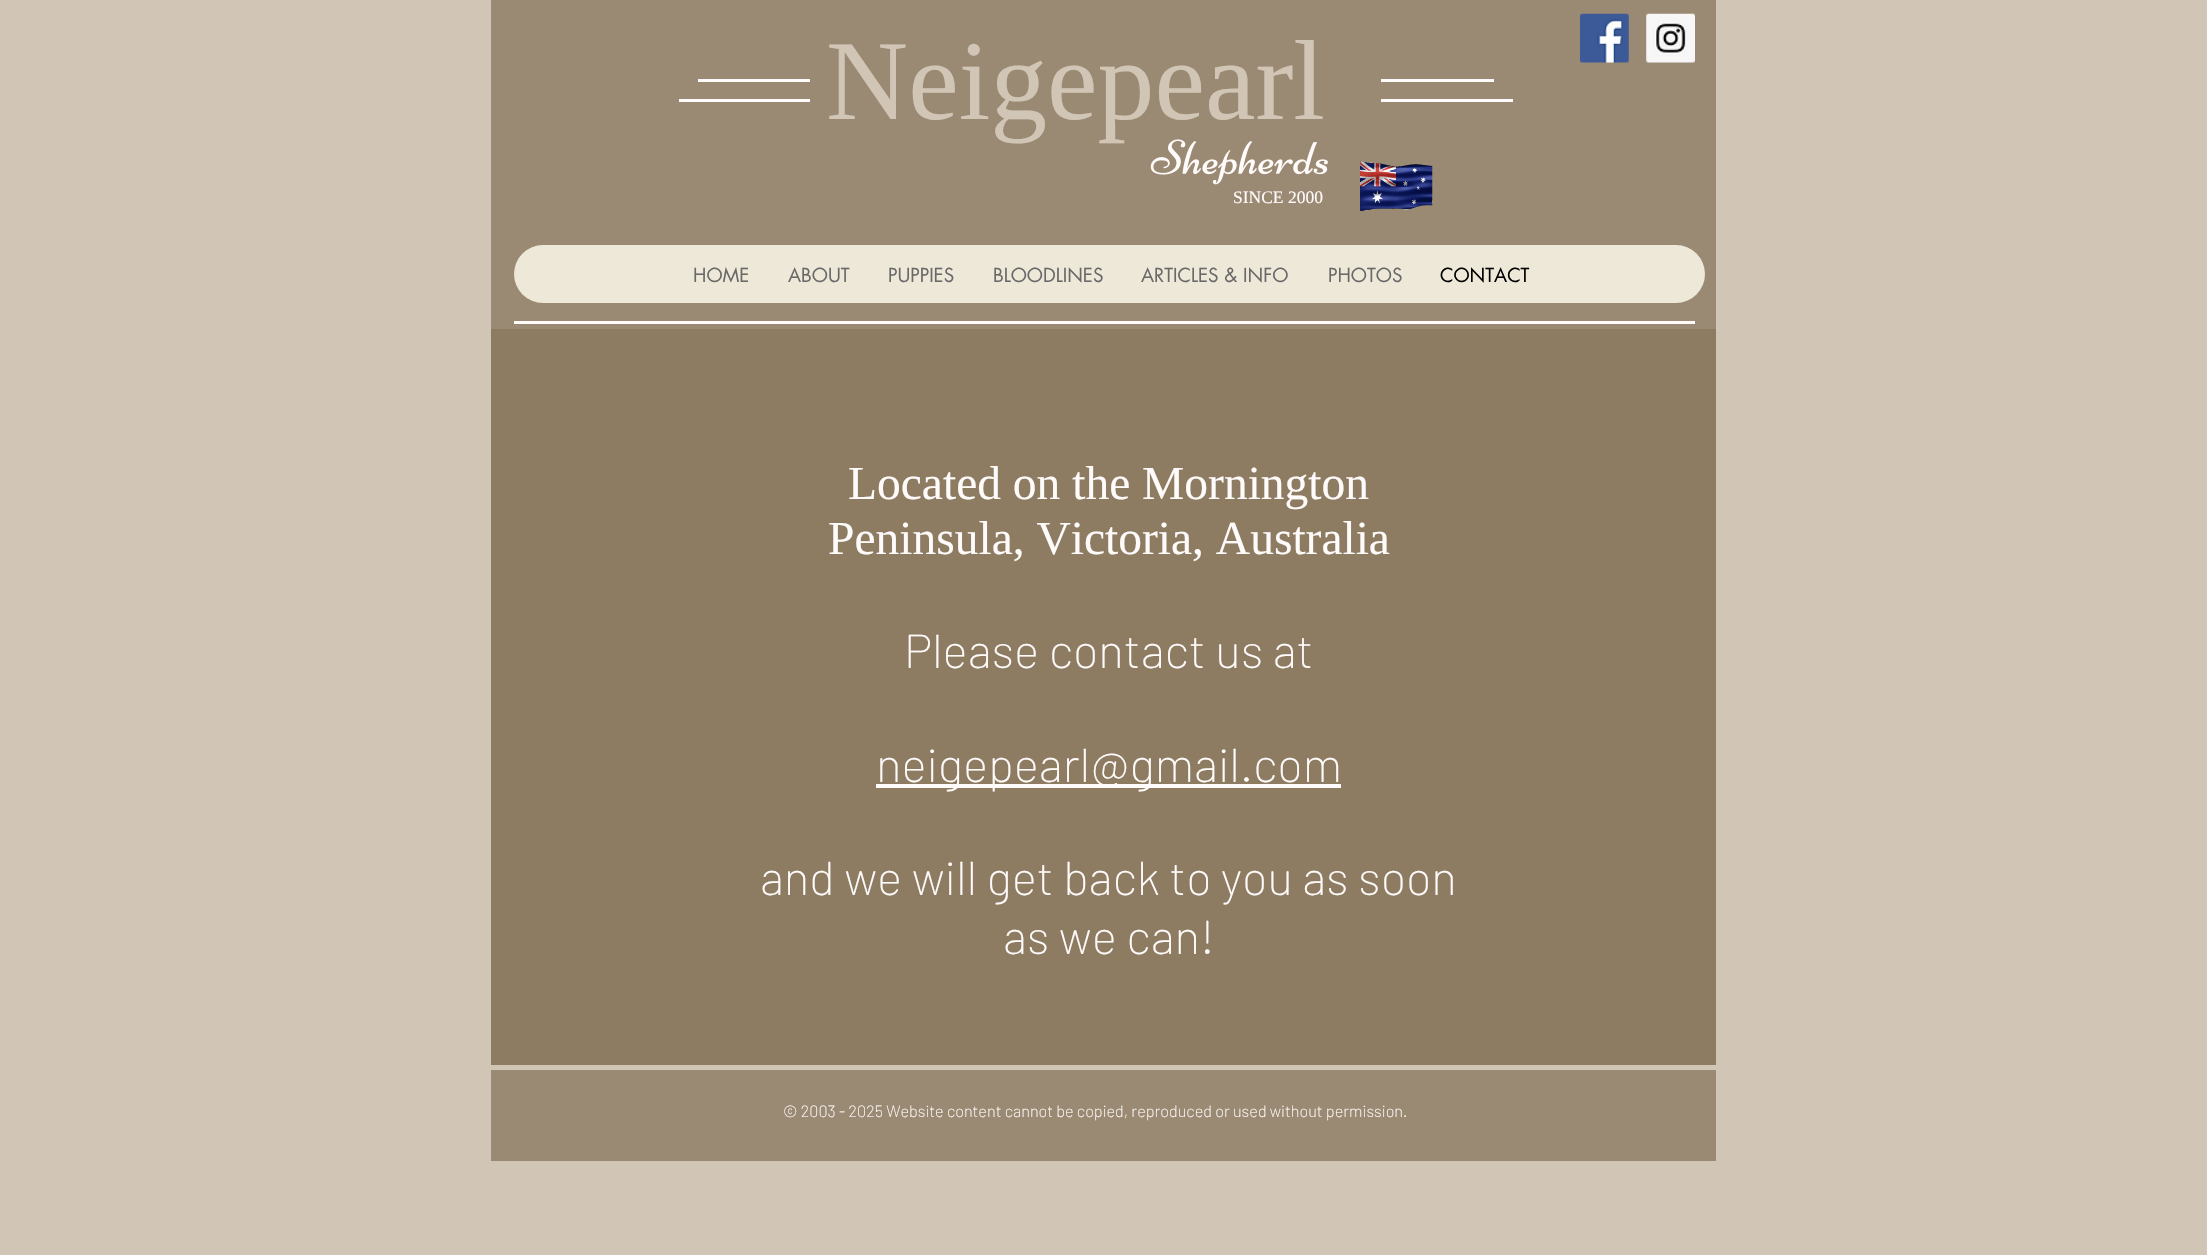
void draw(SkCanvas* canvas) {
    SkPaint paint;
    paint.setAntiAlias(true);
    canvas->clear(0xFFD1C5B5);
    paint.setColor(0xFF9B8A73);
    canvas->drawRect(SkRect::MakeXYWH(491, 0, 1225, 329), paint);
    paint.setColor(0xFFFFFBFB);
    canvas->drawRect(SkRect::MakeXYWH(698, 79, 112, 3), paint);
    SkFont font1(fontMgr->matchFamilyStyle("Liberation Serif", SkFontStyle::Normal()), 113.75f);
    font1.setSubpixel(true);
    paint.setColor(0xFFD1C5B5);
    canvas->drawString("Neigepearl", 826, 119, font1, paint);
    paint.setColor(0xFFFFFBFB);
    canvas->drawRect(SkRect::MakeXYWH(1381, 79, 113, 3), paint);
    canvas->drawImageRect(SkImages::DeferredFromEncodedData(SkData::MakeFromFileName("img1.png")), SkRect::MakeXYWH(1580, 13, 49, 50), SkSamplingOptions());
    canvas->drawImageRect(SkImages::DeferredFromEncodedData(SkData::MakeFromFileName("img2.png")), SkRect::MakeXYWH(1646, 13, 49, 50), SkSamplingOptions());
    canvas->drawRect(SkRect::MakeXYWH(679, 99, 131, 3), paint);
    canvas->drawRect(SkRect::MakeXYWH(1381, 99, 132, 3), paint);
    canvas->drawImageRect(SkImages::DeferredFromEncodedData(SkData::MakeFromFileName("img3.png")), SkRect::MakeXYWH(1150, 139, 178, 46), SkSamplingOptions());
    canvas->drawImageRect(SkImages::DeferredFromEncodedData(SkData::MakeFromFileName("img4.png")), SkRect::MakeXYWH(1360, 161, 73, 50), SkSamplingOptions());
    SkFont font2(fontMgr->matchFamilyStyle("Liberation Serif", SkFontStyle::Normal()), 17.5f);
    font2.setSubpixel(true);
    canvas->drawString("SINCE 2000", 1233, 203, font2, paint);
    paint.setColor(0xFFEEE8D8);
    canvas->drawRoundRect(SkRect::MakeXYWH(514, 245, 1191, 58), 29, 29, paint);
    SkFont font3(fontMgr->matchFamilyStyle("futura", SkFontStyle::Normal()), 18.75f);
    font3.setSubpixel(true);
    paint.setColor(0xFF696969);
    canvas->drawString("HOME", 693, 282, font3, paint);
    canvas->drawString("ABOUT", 788, 282, font3, paint);
    canvas->drawString("PUPPIES", 888, 282, font3, paint);
    canvas->drawString("BLOODLINES", 993, 282, font3, paint);
    canvas->drawString("ARTICLES & INFO", 1141, 282, font3, paint);
    canvas->drawString("PHOTOS", 1328, 282, font3, paint);
    paint.setColor(0xFF000000);
    canvas->drawString("CONTACT", 1440, 282, font3, paint);
    paint.setColor(0xFFFFFBFB);
    canvas->drawRect(SkRect::MakeXYWH(514, 321, 1181, 3), paint);
    paint.setColor(0xFF8D7B62);
    canvas->drawRect(SkRect::MakeXYWH(491, 329, 1225, 736), paint);
    SkFont font4(fontMgr->matchFamilyStyle("Liberation Serif", SkFontStyle::Normal()), 47.5f);
    font4.setSubpixel(true);
    paint.setColor(0xFFFFFBFB);
    canvas->drawString("Located on the Mornington", 848, 499, font4, paint);
    canvas->drawString("Peninsula, Victoria, Australia", 828, 554, font4, paint);
    SkFont font5(fontMgr->matchFamilyStyle("Barlow", SkFontStyle(200, SkFontStyle::kNormal_Width, SkFontStyle::kUpright_Slant)), 47.5f);
    font5.setSubpixel(true);
    canvas->drawString("Please contact us at", 904, 668, font5, paint);
    canvas->drawRect(SkRect::MakeXYWH(876, 784, 465, 4), paint);
    canvas->drawString("neigepearl@gmail.com", 876, 782, font5, paint);
    canvas->drawString("and we will get back to you as soon", 760, 895, font5, paint);
    canvas->drawString("as we can!", 1003, 954, font5, paint);
    paint.setColor(0xFF9B8A73);
    canvas->drawRect(SkRect::MakeXYWH(491, 1070, 1225, 91), paint);
    SkFont font6(fontMgr->matchFamilyStyle("Barlow", SkFontStyle(200, SkFontStyle::kNormal_Width, SkFontStyle::kUpright_Slant)), 16.25f);
    font6.setSubpixel(true);
    paint.setColor(0xFFFFFBFB);
    canvas->drawString("© 2003 - 2025 Website content cannot be copied, reproduced or used without permission.", 783, 1117, font6, paint);
}
